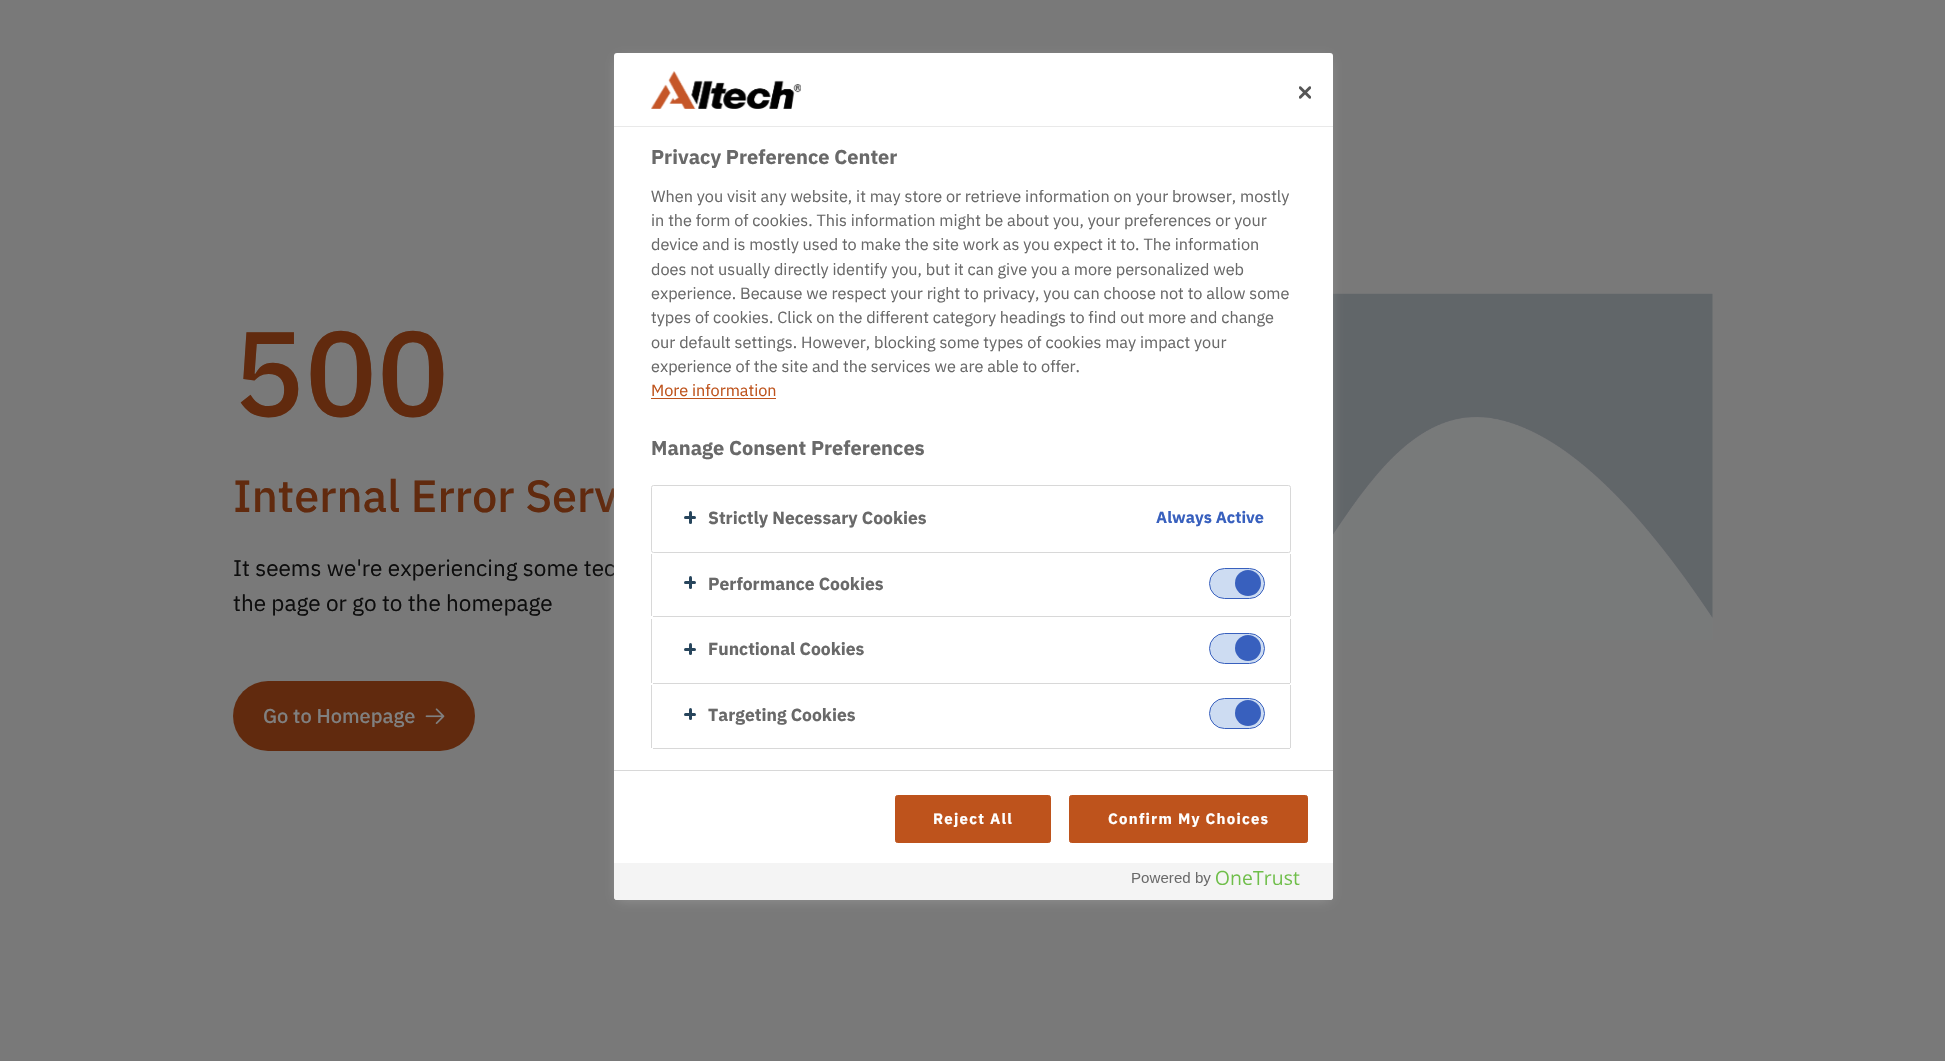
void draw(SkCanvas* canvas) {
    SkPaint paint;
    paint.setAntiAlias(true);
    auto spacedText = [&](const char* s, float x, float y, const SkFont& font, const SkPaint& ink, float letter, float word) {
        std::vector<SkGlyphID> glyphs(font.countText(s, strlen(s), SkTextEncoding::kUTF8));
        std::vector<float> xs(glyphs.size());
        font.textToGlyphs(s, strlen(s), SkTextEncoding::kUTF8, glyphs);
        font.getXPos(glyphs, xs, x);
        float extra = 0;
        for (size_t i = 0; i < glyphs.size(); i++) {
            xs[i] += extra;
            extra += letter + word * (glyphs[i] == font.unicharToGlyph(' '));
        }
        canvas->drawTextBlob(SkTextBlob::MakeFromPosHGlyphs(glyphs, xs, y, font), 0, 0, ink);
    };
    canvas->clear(0xFF797979);
    SkFont font1(fontMgr->matchFamilyStyle("IBM Plex Sans", SkFontStyle(500, SkFontStyle::kNormal_Width, SkFontStyle::kUpright_Slant)), 120);
    font1.setSubpixel(true);
    paint.setColor(0xFF612A0E);
    canvas->drawString("500", 233, 416, font1, paint);
    SkFont font2(fontMgr->matchFamilyStyle("IBM Plex Sans", SkFontStyle(500, SkFontStyle::kNormal_Width, SkFontStyle::kUpright_Slant)), 45);
    font2.setSubpixel(true);
    canvas->drawString("Internal Error Serv", 233, 512, font2, paint);
    SkFont font3(fontMgr->matchFamilyStyle("IBM Plex Sans", SkFontStyle::Normal()), 22.5f);
    font3.setSubpixel(true);
    paint.setColor(0xFF0D0D0D);
    canvas->drawString("It seems we're experiencing some tec", 233, 576, font3, paint);
    canvas->drawString("the page or go to the homepage", 233, 611, font3, paint);
    paint.setColor(0xFF612A0E);
    canvas->drawRoundRect(SkRect::MakeXYWH(233, 681, 242, 70), 35, 35, paint);
    SkFont font4(fontMgr->matchFamilyStyle("IBM Plex Sans", SkFontStyle(500, SkFontStyle::kNormal_Width, SkFontStyle::kUpright_Slant)), 20);
    font4.setSubpixel(true);
    paint.setColor(0xFF808080);
    canvas->drawString("Go to Homepage", 263, 723, font4, paint);
    canvas->drawImageRect(SkImages::DeferredFromEncodedData(SkData::MakeFromFileName("img1.png")), SkRect::MakeXYWH(425, 708, 20, 16), SkSamplingOptions());
    canvas->drawImageRect(SkImages::DeferredFromEncodedData(SkData::MakeFromFileName("img2.png")), SkRect::MakeXYWH(1333, 293, 380, 347), SkSamplingOptions());
    paint.setColor(0xFF999999);
    paint.setMaskFilter(SkMaskFilter::MakeBlur(kNormal_SkBlurStyle, 6));
    canvas->drawRect(SkRect::MakeXYWH(618, 59, 711, 840), paint);
    paint.setMaskFilter(nullptr);
    paint.setColor(0xFFFFFFFF);
    canvas->drawRoundRect(SkRect::MakeXYWH(614, 53, 719, 847), 3, 3, paint);
    paint.setColor(0xFFE9E9E9);
    canvas->drawRect(SkRect::MakeXYWH(614, 126, 719, 1), paint);
    canvas->drawImageRect(SkImages::DeferredFromEncodedData(SkData::MakeFromFileName("img3.png")), SkRect::MakeXYWH(651, 71, 150, 38), SkSamplingOptions());
    canvas->drawImageRect(SkImages::DeferredFromEncodedData(SkData::MakeFromFileName("img4.png")), SkRect::MakeXYWH(1299, 86, 12, 13), SkSamplingOptions());
    SkFont font5(fontMgr->matchFamilyStyle("IBM Plex Sans", SkFontStyle::Bold()), 20);
    font5.setSubpixel(true);
    paint.setColor(0xFF696969);
    canvas->drawString("Privacy Preference Center", 651, 164, font5, paint);
    SkFont font6(fontMgr->matchFamilyStyle("IBM Plex Sans", SkFontStyle::Normal()), 16.25f);
    font6.setSubpixel(true);
    canvas->drawString("When you visit any website, it may store or retrieve information on your browser, mostly", 651, 202, font6, paint);
    canvas->drawString("in the form of cookies. This information might be about you, your preferences or your", 651, 226, font6, paint);
    canvas->drawString("device and is mostly used to make the site work as you expect it to. The information", 651, 250, font6, paint);
    canvas->drawString("does not usually directly identify you, but it can give you a more personalized web", 651, 275, font6, paint);
    canvas->drawString("experience. Because we respect your right to privacy, you can choose not to allow some", 651, 299, font6, paint);
    canvas->drawString("types of cookies. Click on the different category headings to find out more and change", 651, 323, font6, paint);
    canvas->drawString("our default settings. However, blocking some types of cookies may impact your", 651, 348, font6, paint);
    canvas->drawString("experience of the site and the services we are able to offer.", 651, 372, font6, paint);
    paint.setColor(0xFFBE531C);
    canvas->drawString("More information", 651, 396, font6, paint);
    canvas->drawRect(SkRect::MakeXYWH(651, 398, 125, 1), paint);
    paint.setColor(0xFF696969);
    canvas->drawString("Manage Consent Preferences", 651, 455, font5, paint);
    paint.setStyle(SkPaint::kStroke_Style);
    paint.setStrokeWidth(1);
    paint.setColor(0xFFD8D8D8);
    canvas->drawRoundRect(SkRect::MakeXYWH(651.5f, 485.5f, 639, 67), 2, 2, paint);
    paint.setStyle(SkPaint::kFill_Style);
    paint.setColor(0xFF27455C);
    canvas->drawRoundRect(SkRect::MakeXYWH(689, 511, 3, 13), 1.5f, 1.5f, paint);
    canvas->drawRoundRect(SkRect::MakeXYWH(684, 516, 12, 3), 1.5f, 1.5f, paint);
    SkFont font7(fontMgr->matchFamilyStyle("IBM Plex Sans", SkFontStyle::Bold()), 17.5f);
    font7.setSubpixel(true);
    paint.setColor(0xFF696969);
    canvas->drawString("Strictly Necessary Cookies", 708, 524, font7, paint);
    SkFont font8(fontMgr->matchFamilyStyle("IBM Plex Sans", SkFontStyle::Bold()), 16.25f);
    font8.setSubpixel(true);
    paint.setColor(0xFF3860BE);
    canvas->drawString("Always Active", 1156, 523, font8, paint);
    paint.setColor(0xFFD8D8D8);
    canvas->drawRect(SkRect::MakeXYWH(1290, 554, 1, 62), paint);
    canvas->drawRect(SkRect::MakeXYWH(653, 616, 637, 1), paint);
    canvas->drawRect(SkRect::MakeXYWH(651, 554, 1, 62), paint);
    paint.setColor(0xFF27455C);
    canvas->drawRoundRect(SkRect::MakeXYWH(689, 576, 3, 13), 1.5f, 1.5f, paint);
    canvas->drawRoundRect(SkRect::MakeXYWH(684, 581, 12, 3), 1.5f, 1.5f, paint);
    paint.setColor(0xFF696969);
    canvas->drawString("Performance Cookies", 708, 590, font7, paint);
    paint.setColor(0xFFCDDCF2);
    canvas->drawRoundRect(SkRect::MakeXYWH(1209.5f, 568.5f, 55, 30), 15, 15, paint);
    paint.setStyle(SkPaint::kStroke_Style);
    paint.setColor(0xFF3860BE);
    canvas->drawRoundRect(SkRect::MakeXYWH(1209.5f, 568.5f, 55, 30), 15, 15, paint);
    paint.setStyle(SkPaint::kFill_Style);
    canvas->drawCircle(1248, 583, 13, paint);
    paint.setColor(0xFFD8D8D8);
    canvas->drawRect(SkRect::MakeXYWH(1290, 619, 1, 64), paint);
    canvas->drawRect(SkRect::MakeXYWH(653, 683, 637, 1), paint);
    canvas->drawRect(SkRect::MakeXYWH(651, 619, 1, 64), paint);
    paint.setColor(0xFF27455C);
    canvas->drawRoundRect(SkRect::MakeXYWH(689, 643, 3, 12), 1.5f, 1.5f, paint);
    canvas->drawRoundRect(SkRect::MakeXYWH(684, 648, 12, 3), 1.5f, 1.5f, paint);
    paint.setColor(0xFF696969);
    canvas->drawString("Functional Cookies", 708, 655, font7, paint);
    paint.setColor(0xFFCDDCF2);
    canvas->drawRoundRect(SkRect::MakeXYWH(1209.5f, 633.5f, 55, 30), 15, 15, paint);
    paint.setStyle(SkPaint::kStroke_Style);
    paint.setColor(0xFF3860BE);
    canvas->drawRoundRect(SkRect::MakeXYWH(1209.5f, 633.5f, 55, 30), 15, 15, paint);
    paint.setStyle(SkPaint::kFill_Style);
    canvas->drawCircle(1248, 648, 13, paint);
    paint.setColor(0xFFD8D8D8);
    canvas->drawRect(SkRect::MakeXYWH(1290, 685, 1, 63), paint);
    canvas->drawRect(SkRect::MakeXYWH(653, 748, 637, 1), paint);
    canvas->drawRect(SkRect::MakeXYWH(651, 685, 1, 63), paint);
    paint.setColor(0xFF27455C);
    canvas->drawRoundRect(SkRect::MakeXYWH(689, 708, 3, 12), 1.5f, 1.5f, paint);
    canvas->drawRoundRect(SkRect::MakeXYWH(684, 713, 12, 3), 1.5f, 1.5f, paint);
    paint.setColor(0xFF696969);
    canvas->drawString("Targeting Cookies", 708, 721, font7, paint);
    paint.setColor(0xFFCDDCF2);
    canvas->drawRoundRect(SkRect::MakeXYWH(1209.5f, 698.5f, 55, 30), 15, 15, paint);
    paint.setStyle(SkPaint::kStroke_Style);
    paint.setColor(0xFF3860BE);
    canvas->drawRoundRect(SkRect::MakeXYWH(1209.5f, 698.5f, 55, 30), 15, 15, paint);
    paint.setStyle(SkPaint::kFill_Style);
    canvas->drawCircle(1248, 713, 13, paint);
    paint.setColor(0xFFD8D8D8);
    canvas->drawRect(SkRect::MakeXYWH(614, 770, 719, 1), paint);
    paint.setColor(0xFFBE531C);
    canvas->drawRoundRect(SkRect::MakeXYWH(895.5f, 795.5f, 155, 47), 2, 2, paint);
    paint.setStyle(SkPaint::kStroke_Style);
    canvas->drawRoundRect(SkRect::MakeXYWH(895.5f, 795.5f, 155, 47), 2, 2, paint);
    SkFont font9(fontMgr->matchFamilyStyle("IBM Plex Sans", SkFontStyle::Bold()), 15);
    font9.setSubpixel(true);
    paint.setStyle(SkPaint::kFill_Style);
    paint.setColor(0xFFFFFFFF);
    spacedText("Reject All", 933, 824, font9, paint, 1.25f, 0);
    paint.setColor(0xFFBE531C);
    canvas->drawRoundRect(SkRect::MakeXYWH(1069.5f, 795.5f, 238, 47), 2, 2, paint);
    paint.setStyle(SkPaint::kStroke_Style);
    canvas->drawRoundRect(SkRect::MakeXYWH(1069.5f, 795.5f, 238, 47), 2, 2, paint);
    paint.setStyle(SkPaint::kFill_Style);
    paint.setColor(0xFFFFFFFF);
    spacedText("Confirm My Choices", 1108, 824, font9, paint, 1.25f, 0);
    paint.setColor(0xFFF4F4F4);
    canvas->drawPath(SkPathBuilder().moveTo(614, 863).lineTo(1333, 863).lineTo(1333, 897).cubicTo(1333, 898.5f, 1331.5f, 900, 1330, 900).lineTo(617, 900).cubicTo(615.5f, 900, 614, 898.5f, 614, 897).close().detach(), paint);
    canvas->drawImageRect(SkImages::DeferredFromEncodedData(SkData::MakeFromFileName("img5.png")), SkRect::MakeXYWH(1132, 870, 168, 16), SkSamplingOptions());
}
